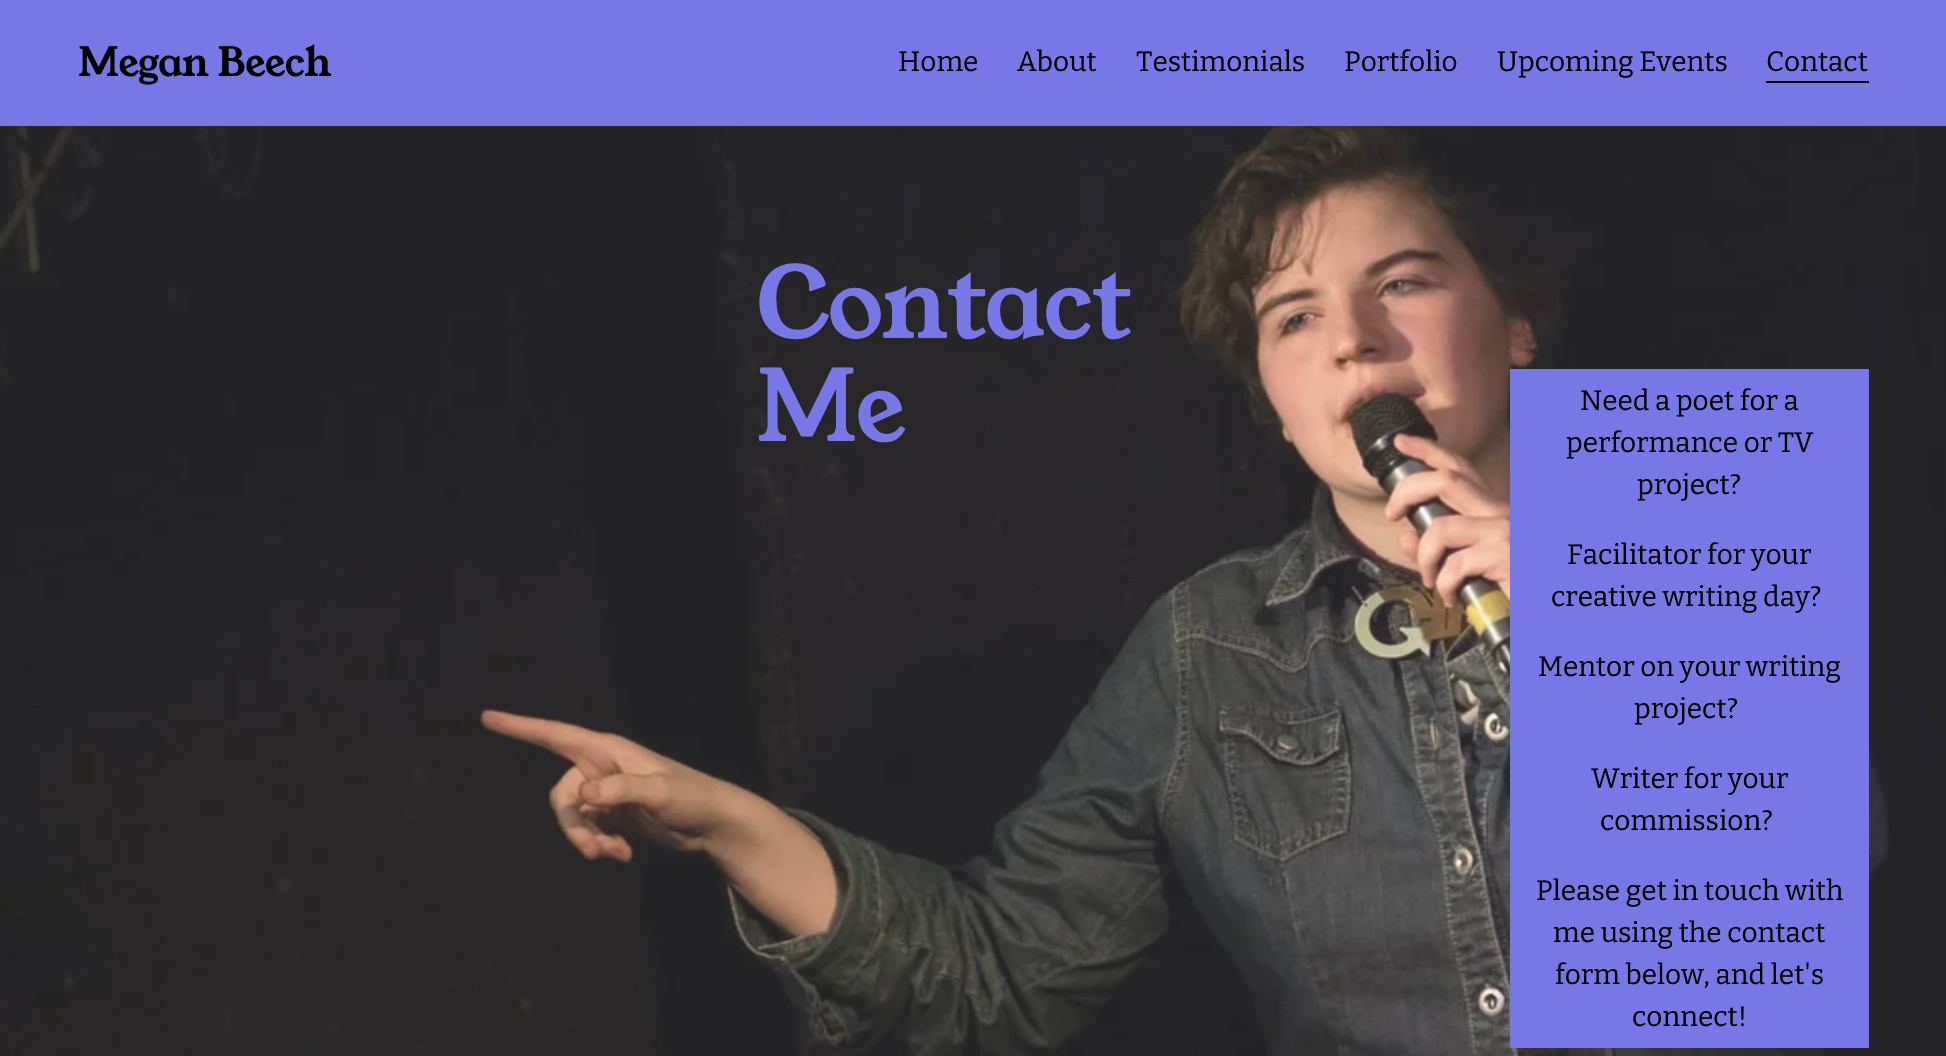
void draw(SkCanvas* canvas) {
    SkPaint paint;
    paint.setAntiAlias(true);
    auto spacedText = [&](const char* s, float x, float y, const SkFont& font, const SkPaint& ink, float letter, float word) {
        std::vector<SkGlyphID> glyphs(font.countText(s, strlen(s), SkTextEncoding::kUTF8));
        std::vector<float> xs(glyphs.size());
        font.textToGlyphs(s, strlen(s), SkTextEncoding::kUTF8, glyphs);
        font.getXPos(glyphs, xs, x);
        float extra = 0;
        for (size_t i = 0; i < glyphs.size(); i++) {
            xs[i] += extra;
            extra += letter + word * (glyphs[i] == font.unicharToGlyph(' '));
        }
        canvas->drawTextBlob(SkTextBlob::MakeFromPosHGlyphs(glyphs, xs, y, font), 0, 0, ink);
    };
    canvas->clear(0xFFFFFFFF);
    paint.setColor(0xFF7877E6);
    canvas->drawRect(SkRect::MakeXYWH(0, 0, 1946, 126), paint);
    SkFont font1(fontMgr->matchFamilyStyle("Young Serif", SkFontStyle::Normal()), 39.75f);
    font1.setSubpixel(true);
    paint.setColor(0xFF000000);
    spacedText("Megan Beech", 78, 76, font1, paint, -0.75f, 0);
    SkFont font2(fontMgr->matchFamilyStyle("Bitter", SkFontStyle::Normal()), 28);
    font2.setSubpixel(true);
    canvas->drawString("Home", 898, 71, font2, paint);
    canvas->drawString("About", 1017, 71, font2, paint);
    canvas->drawString("Testimonials", 1136, 71, font2, paint);
    canvas->drawString("Portfolio", 1344, 71, font2, paint);
    canvas->drawString("Upcoming Events", 1497, 71, font2, paint);
    canvas->drawRect(SkRect::MakeXYWH(1766, 81, 103, 2), paint);
    canvas->drawString("Contact", 1766, 71, font2, paint);
    canvas->drawImageRect(SkImages::DeferredFromEncodedData(SkData::MakeFromFileName("img1.png")), SkRect::MakeXYWH(0, 126, 1946, 930), SkSamplingOptions());
    SkFont font3(fontMgr->matchFamilyStyle("Young Serif", SkFontStyle::Normal()), 98);
    font3.setSubpixel(true);
    paint.setColor(0xFF7877E6);
    spacedText("Contact", 756, 338, font3, paint, -2, 0);
    spacedText("Me", 756, 441, font3, paint, -2, 0);
    canvas->drawRect(SkRect::MakeXYWH(1510, 369, 359, 679), paint);
    paint.setColor(0xFF000000);
    canvas->drawString("Need a poet for a", 1580, 410, font2, paint);
    canvas->drawString("performance or TV", 1566, 452, font2, paint);
    canvas->drawString("project?", 1637, 494, font2, paint);
    canvas->drawString("Facilitator for your", 1567, 564, font2, paint);
    canvas->drawString("creative writing day?", 1551, 606, font2, paint);
    canvas->drawString("Mentor on your writing", 1538, 676, font2, paint);
    canvas->drawString("project?", 1634, 718, font2, paint);
    canvas->drawString("Writer for your", 1591, 788, font2, paint);
    canvas->drawString("commission?", 1600, 830, font2, paint);
    canvas->drawString("Please get in touch with", 1536, 900, font2, paint);
    canvas->drawString("me using the contact", 1553, 942, font2, paint);
    canvas->drawString("form below, and let's", 1555, 984, font2, paint);
    canvas->drawString("connect!", 1632, 1026, font2, paint);
}
